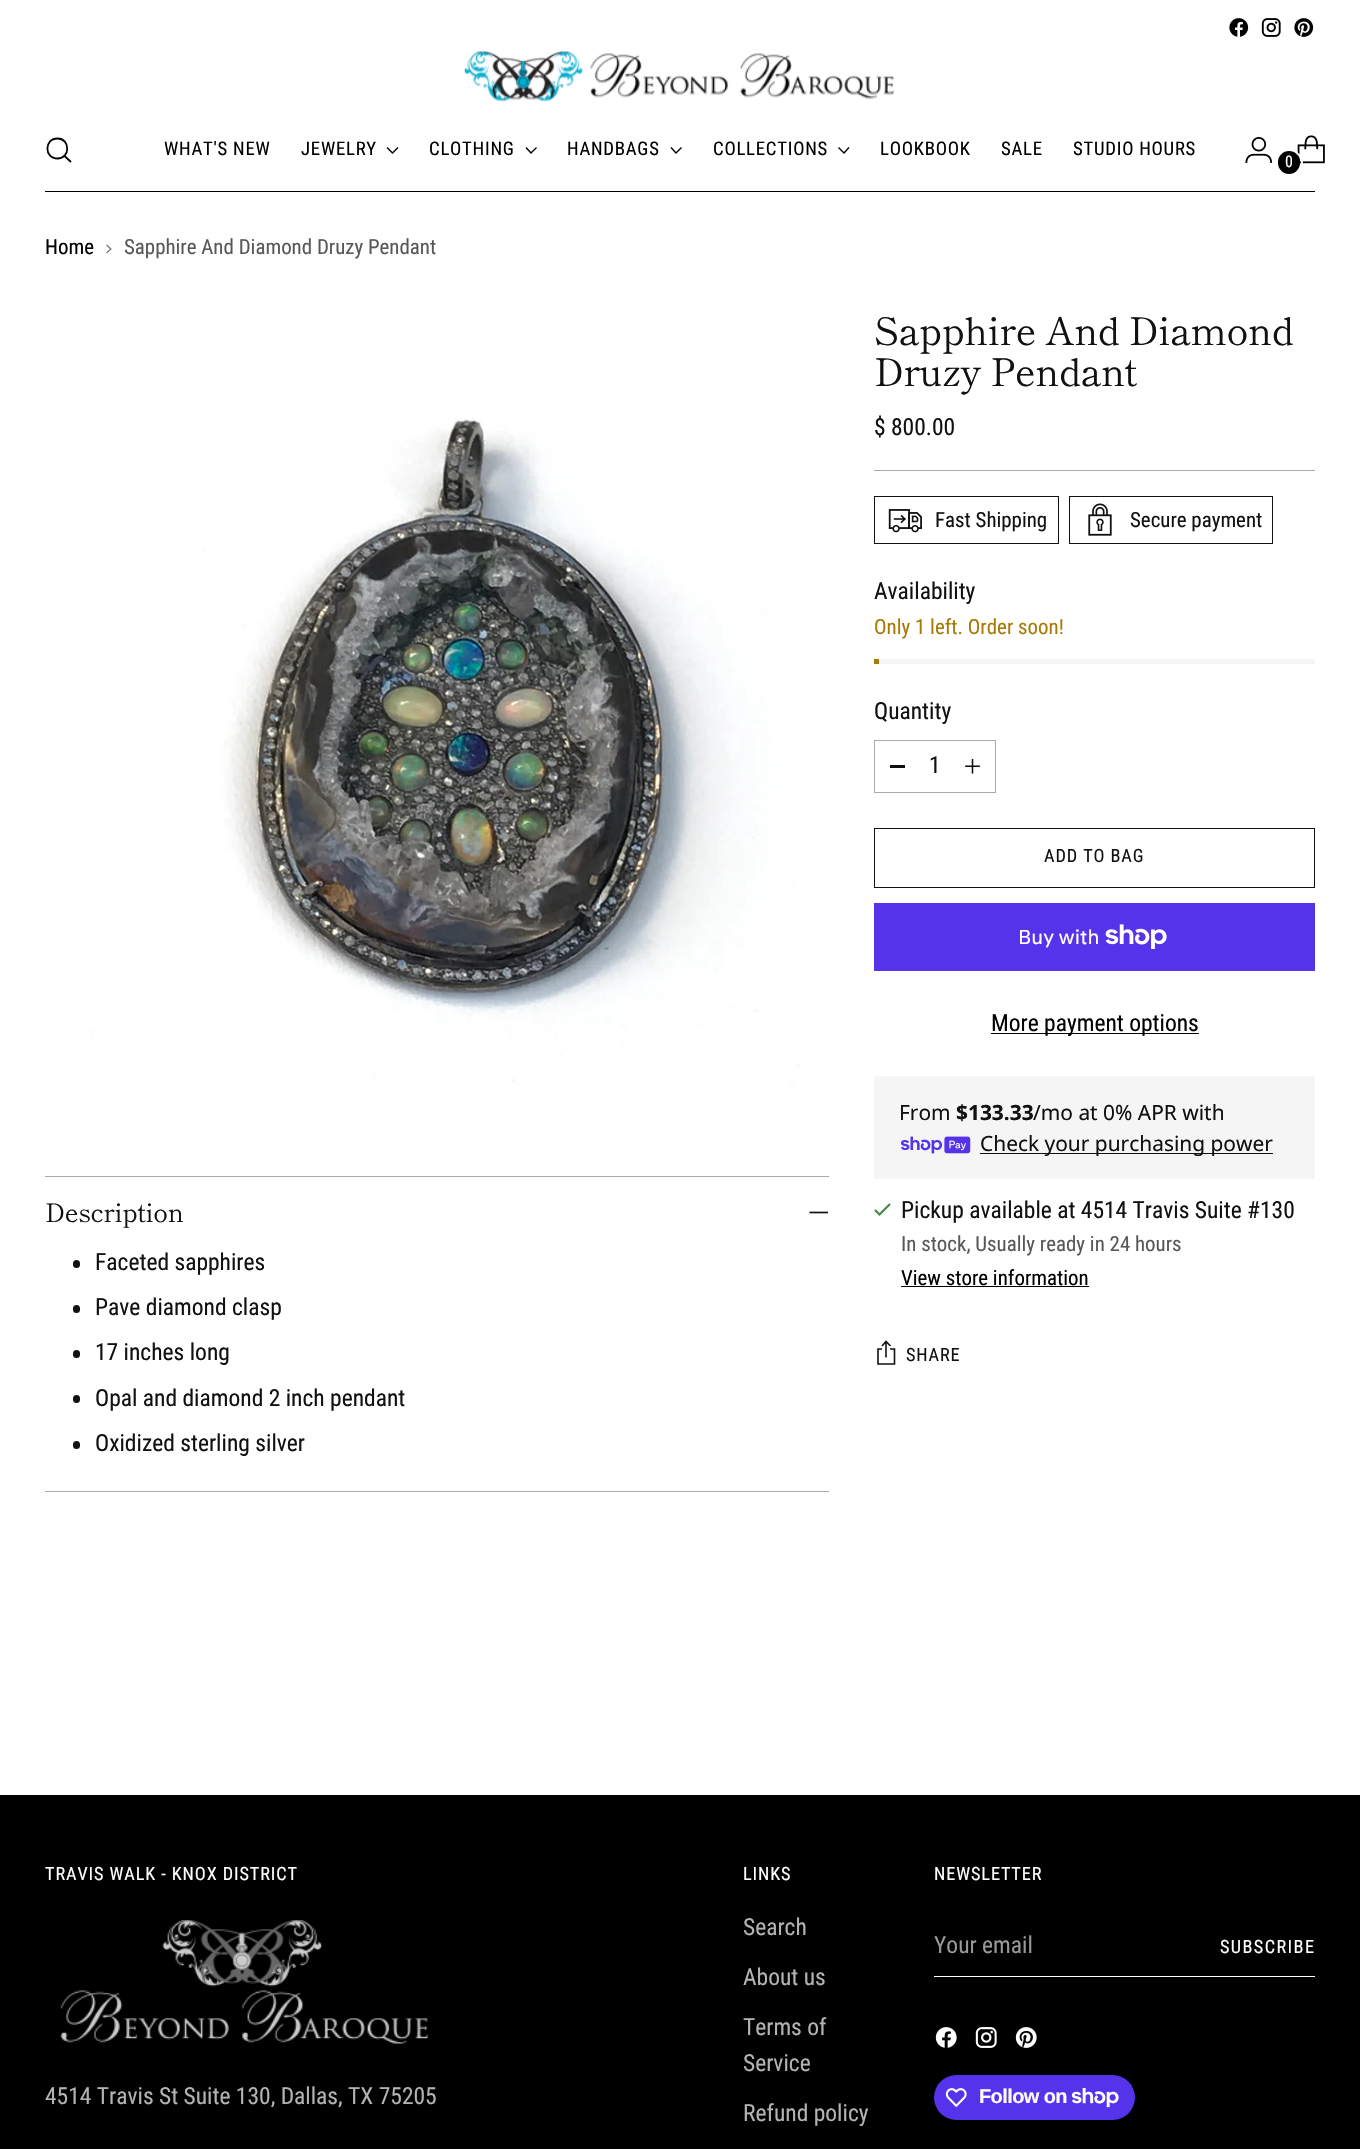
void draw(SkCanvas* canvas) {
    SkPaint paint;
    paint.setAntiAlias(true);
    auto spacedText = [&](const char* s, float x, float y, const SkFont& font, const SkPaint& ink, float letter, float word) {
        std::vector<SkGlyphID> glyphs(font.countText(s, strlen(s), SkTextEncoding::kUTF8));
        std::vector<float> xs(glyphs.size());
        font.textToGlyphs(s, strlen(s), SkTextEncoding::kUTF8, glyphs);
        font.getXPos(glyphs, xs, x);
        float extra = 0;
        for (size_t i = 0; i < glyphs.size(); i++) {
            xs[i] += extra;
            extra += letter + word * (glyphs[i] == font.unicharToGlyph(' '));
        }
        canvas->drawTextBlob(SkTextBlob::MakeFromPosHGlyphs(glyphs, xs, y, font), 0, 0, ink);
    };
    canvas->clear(0xFFFFFFFF);
    paint.setColor(0xFF000000);
    canvas->drawRect(SkRect::MakeXYWH(45, 191, 1270, 1), paint);
    canvas->drawImageRect(SkImages::DeferredFromEncodedData(SkData::MakeFromFileName("img1.png")), SkRect::MakeXYWH(1229, 18, 20, 19), SkSamplingOptions());
    canvas->drawImageRect(SkImages::DeferredFromEncodedData(SkData::MakeFromFileName("img2.png")), SkRect::MakeXYWH(1261, 18, 20, 19), SkSamplingOptions());
    canvas->drawImageRect(SkImages::DeferredFromEncodedData(SkData::MakeFromFileName("img3.png")), SkRect::MakeXYWH(1294, 18, 20, 19), SkSamplingOptions());
    canvas->drawImageRect(SkImages::DeferredFromEncodedData(SkData::MakeFromFileName("img4.png")), SkRect::MakeXYWH(463, 51, 431, 51), SkSamplingOptions());
    paint.setStyle(SkPaint::kStroke_Style);
    paint.setStrokeWidth(1.8f);
    paint.setStrokeCap(SkPaint::kRound_Cap);
    canvas->drawPath(SkPathBuilder().moveTo(57.5f, 158.5f).cubicTo(70.5f, 158.5f, 70.5f, 138.5f, 57.5f, 138.5f).cubicTo(44, 138.5f, 44, 158.5f, 57.5f, 158.5f).close().detach(), paint);
    paint.setStrokeCap(SkPaint::kButt_Cap);
    canvas->drawPath(SkPathBuilder().moveTo(64.5f, 156).lineTo(71, 162).detach(), paint);
    SkFont font1(fontMgr->matchFamilyStyle("Roboto Condensed", SkFontStyle::Normal()), 18.75f);
    font1.setSubpixel(true);
    paint.setStyle(SkPaint::kFill_Style);
    spacedText("WHAT'S NEW", 164, 155, font1, paint, 0.75f, 0);
    spacedText("JEWELRY", 301, 155, font1, paint, 0.75f, 0);
    paint.setStyle(SkPaint::kStroke_Style);
    paint.setStrokeWidth(1.4f);
    canvas->drawPath(SkPathBuilder().moveTo(387, 147.5f).lineTo(392.5f, 153).lineTo(398, 147.5f).detach(), paint);
    paint.setStyle(SkPaint::kFill_Style);
    spacedText("CLOTHING", 429, 155, font1, paint, 0.75f, 0);
    paint.setStyle(SkPaint::kStroke_Style);
    canvas->drawPath(SkPathBuilder().moveTo(526, 147.5f).lineTo(531, 153).lineTo(536.5f, 147.5f).detach(), paint);
    paint.setStyle(SkPaint::kFill_Style);
    spacedText("HANDBAGS", 567, 155, font1, paint, 0.75f, 0);
    paint.setStyle(SkPaint::kStroke_Style);
    canvas->drawPath(SkPathBuilder().moveTo(671, 147.5f).lineTo(676, 153).lineTo(681.5f, 147.5f).detach(), paint);
    paint.setStyle(SkPaint::kFill_Style);
    spacedText("COLLECTIONS", 713, 155, font1, paint, 0.75f, 0);
    paint.setStyle(SkPaint::kStroke_Style);
    canvas->drawPath(SkPathBuilder().moveTo(838.5f, 147.5f).lineTo(844, 153).lineTo(849, 147.5f).detach(), paint);
    paint.setStyle(SkPaint::kFill_Style);
    spacedText("LOOKBOOK", 880, 155, font1, paint, 0.75f, 0);
    spacedText("SALE", 1001, 155, font1, paint, 0.75f, 0);
    spacedText("STUDIO HOURS", 1073, 155, font1, paint, 0.75f, 0);
    canvas->drawImageRect(SkImages::DeferredFromEncodedData(SkData::MakeFromFileName("img5.png")), SkRect::MakeXYWH(1245, 137, 28, 26), SkSamplingOptions());
    canvas->drawImageRect(SkImages::DeferredFromEncodedData(SkData::MakeFromFileName("img6.png")), SkRect::MakeXYWH(1297, 135, 28, 29), SkSamplingOptions());
    paint.setStyle(SkPaint::kStroke_Style);
    paint.setStrokeWidth(2);
    paint.setColor(0xFFFFFFFF);
    canvas->drawRoundRect(SkRect::MakeXYWH(1277, 151, 25, 24), 12, 12, paint);
    paint.setStyle(SkPaint::kFill_Style);
    paint.setColor(0xFF000000);
    canvas->drawRoundRect(SkRect::MakeXYWH(1278, 151, 22, 23), 11, 11, paint);
    SkFont font2(fontMgr->matchFamilyStyle("Roboto Condensed", SkFontStyle::Normal()), 16);
    font2.setSubpixel(true);
    paint.setColor(0xFFFFFFFF);
    canvas->drawString("0", 1285, 167, font2, paint);
    SkFont font3(fontMgr->matchFamilyStyle("Roboto Condensed", SkFontStyle::Normal()), 20.9f);
    font3.setSubpixel(true);
    paint.setColor(0xFF000000);
    canvas->drawString("Home", 45, 254, font3, paint);
    paint.setStyle(SkPaint::kStroke_Style);
    paint.setStrokeWidth(1.1f);
    paint.setColor(0xFF707070);
    canvas->drawPath(SkPathBuilder().moveTo(106.5f, 253).lineTo(111, 249).lineTo(106.5f, 245).detach(), paint);
    paint.setStyle(SkPaint::kFill_Style);
    paint.setColor(0xFF585858);
    canvas->drawString("Sapphire And Diamond Druzy Pendant", 124, 254, font3, paint);
    canvas->drawImageRect(SkImages::DeferredFromEncodedData(SkData::MakeFromFileName("img7.png")), SkRect::MakeXYWH(90, 383, 710, 725), SkSamplingOptions());
    paint.setColor(0xFFAAAAAA);
    canvas->drawRect(SkRect::MakeXYWH(45, 1176, 784, 1), paint);
    canvas->drawRect(SkRect::MakeXYWH(45, 1491, 784, 1), paint);
    SkFont font4(fontMgr->matchFamilyStyle("Shippori Mincho", SkFontStyle::Normal()), 25.5f);
    font4.setSubpixel(true);
    paint.setColor(0xFF111111);
    spacedText("Description", 45, 1222, font4, paint, -0.25f, 0);
    paint.setStyle(SkPaint::kStroke_Style);
    paint.setStrokeWidth(1.7f);
    canvas->drawPath(SkPathBuilder().moveTo(809.5f, 1212.5f).lineTo(828, 1212.5f).detach(), paint);
    paint.setStyle(SkPaint::kFill_Style);
    canvas->drawRoundRect(SkRect::MakeXYWH(73, 1260, 7, 8), 3.5f, 3.5f, paint);
    SkFont font5(fontMgr->matchFamilyStyle("Roboto Condensed", SkFontStyle::Normal()), 23.5f);
    font5.setSubpixel(true);
    canvas->drawString("Faceted sapphires", 95, 1270, font5, paint);
    canvas->drawRoundRect(SkRect::MakeXYWH(73, 1305, 7, 8), 3.5f, 3.5f, paint);
    canvas->drawString("Pave diamond clasp", 95, 1315, font5, paint);
    canvas->drawRoundRect(SkRect::MakeXYWH(73, 1350, 7, 8), 3.5f, 3.5f, paint);
    canvas->drawString("17 inches long", 95, 1360, font5, paint);
    canvas->drawRoundRect(SkRect::MakeXYWH(73, 1395, 7, 8), 3.5f, 3.5f, paint);
    canvas->drawString("Opal and diamond 2 inch pendant", 95, 1406, font5, paint);
    canvas->drawRoundRect(SkRect::MakeXYWH(73, 1441, 7, 8), 3.5f, 3.5f, paint);
    canvas->drawString("Oxidized sterling silver", 95, 1451, font5, paint);
    paint.setColor(0xFFAAAAAA);
    canvas->drawRect(SkRect::MakeXYWH(874, 470, 441, 1), paint);
    SkFont font6(fontMgr->matchFamilyStyle("Shippori Mincho", SkFontStyle::Normal()), 38.1f);
    font6.setSubpixel(true);
    paint.setColor(0xFF111111);
    spacedText("Sapphire And Diamond", 874, 345, font6, paint, -0.4f, 0);
    spacedText("Druzy Pendant", 874, 386, font6, paint, -0.4f, 0);
    canvas->drawString("$ 800.00", 874, 435, font5, paint);
    paint.setStyle(SkPaint::kStroke_Style);
    paint.setStrokeWidth(1);
    canvas->drawRect(SkRect::MakeXYWH(874.5f, 496.5f, 184, 47), paint);
    canvas->drawImageRect(SkImages::DeferredFromEncodedData(SkData::MakeFromFileName("img8.png")), SkRect::MakeXYWH(888, 509, 34, 24), SkSamplingOptions());
    paint.setStyle(SkPaint::kFill_Style);
    canvas->drawString("Fast Shipping", 935, 527, font3, paint);
    paint.setStyle(SkPaint::kStroke_Style);
    canvas->drawRect(SkRect::MakeXYWH(1069.5f, 496.5f, 203, 47), paint);
    canvas->drawImageRect(SkImages::DeferredFromEncodedData(SkData::MakeFromFileName("img9.png")), SkRect::MakeXYWH(1088, 503, 24, 33), SkSamplingOptions());
    paint.setStyle(SkPaint::kFill_Style);
    canvas->drawString("Secure payment", 1130, 527, font3, paint);
    canvas->drawString("Availability", 874, 599, font5, paint);
    paint.setColor(0xFFA77A06);
    canvas->drawString("Only 1 left. Order soon!", 874, 634, font3, paint);
    paint.setColor(0xFFF5F5F5);
    canvas->drawRect(SkRect::MakeXYWH(874, 659, 441, 5), paint);
    paint.setColor(0xFFA77A06);
    canvas->drawRect(SkRect::MakeXYWH(874, 659, 5, 5), paint);
    paint.setColor(0xFF111111);
    canvas->drawString("Quantity", 874, 719, font5, paint);
    paint.setStyle(SkPaint::kStroke_Style);
    paint.setColor(0xFFAAAAAA);
    canvas->drawRect(SkRect::MakeXYWH(874.5f, 740.5f, 121, 52), paint);
    paint.setStyle(SkPaint::kFill_Style);
    paint.setColor(0xFF111111);
    canvas->drawRect(SkRect::MakeXYWH(890, 765, 15, 3), paint);
    canvas->drawString("1", 929, 773, font5, paint);
    canvas->drawImageRect(SkImages::DeferredFromEncodedData(SkData::MakeFromFileName("img10.png")), SkRect::MakeXYWH(965, 759, 15, 15), SkSamplingOptions());
    paint.setStyle(SkPaint::kStroke_Style);
    canvas->drawRect(SkRect::MakeXYWH(874.5f, 828.5f, 440, 59), paint);
    SkFont font7(fontMgr->matchFamilyStyle("Roboto Condensed", SkFontStyle::Normal()), 18.25f);
    font7.setSubpixel(true);
    paint.setStyle(SkPaint::kFill_Style);
    spacedText("ADD TO BAG", 1044, 862, font7, paint, 0.9f, 0);
    paint.setColor(0xFF5433EB);
    canvas->drawRect(SkRect::MakeXYWH(874, 903, 441, 68), paint);
    SkFont font8(fontMgr->matchFamilyStyle("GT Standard", SkFontStyle::Normal()), 20);
    font8.setSubpixel(true);
    paint.setColor(0xFFFFFFFF);
    canvas->drawString("Buy with", 1018, 944, font8, paint);
    canvas->drawImageRect(SkImages::DeferredFromEncodedData(SkData::MakeFromFileName("img11.png")), SkRect::MakeXYWH(1105, 924, 62, 25), SkSamplingOptions());
    paint.setColor(0xFF000000);
    canvas->drawRect(SkRect::MakeXYWH(991, 1033, 208, 1), paint);
    canvas->drawString("More payment options", 991, 1031, font5, paint);
    paint.setColor(0xFFF5F5F5);
    canvas->drawRect(SkRect::MakeXYWH(874, 1076, 441, 103), paint);
    SkFont font9(fontMgr->matchFamilyStyle("Noto Sans", SkFontStyle::Normal()), 20.9f);
    font9.setSubpixel(true);
    paint.setColor(0xFF111111);
    canvas->drawString("From", 899, 1120, font9, paint);
    SkFont font10(fontMgr->matchFamilyStyle("Noto Sans", SkFontStyle::Bold()), 20.9f);
    font10.setSubpixel(true);
    canvas->drawString("$133.33", 956, 1120, font10, paint);
    canvas->drawString("/mo at 0% APR with", 1033, 1120, font9, paint);
    canvas->drawImageRect(SkImages::DeferredFromEncodedData(SkData::MakeFromFileName("img12.png")), SkRect::MakeXYWH(901, 1136, 70, 18), SkSamplingOptions());
    canvas->drawRect(SkRect::MakeXYWH(980, 1153, 293, 1), paint);
    canvas->drawString("Check your purchasing power", 980, 1151, font9, paint);
    paint.setStyle(SkPaint::kStroke_Style);
    paint.setStrokeWidth(2.2f);
    paint.setColor(0xFF478947);
    canvas->drawPath(SkPathBuilder().moveTo(875, 1210).lineTo(879.5f, 1214.5f).lineTo(890, 1204).detach(), paint);
    paint.setStyle(SkPaint::kFill_Style);
    paint.setColor(0xFF111111);
    canvas->drawString("Pickup available at 4514 Travis Suite #130", 901, 1218, font5, paint);
    paint.setColor(0xFF585858);
    canvas->drawString("In stock, Usually ready in 24 hours", 901, 1251, font3, paint);
    paint.setColor(0xFF000000);
    canvas->drawString("View store information", 901, 1285, font3, paint);
    canvas->drawRect(SkRect::MakeXYWH(901, 1286, 188, 1), paint);
    paint.setStyle(SkPaint::kStroke_Style);
    paint.setStrokeWidth(1.6f);
    paint.setColor(0xFF111111);
    canvas->drawPath(SkPathBuilder().moveTo(882, 1349).lineTo(878, 1349).lineTo(878, 1364).lineTo(894.5f, 1364).lineTo(894.5f, 1349).lineTo(890, 1349).moveTo(886, 1357.5f).lineTo(886, 1342.5f).moveTo(890.5f, 1346).lineTo(886, 1341.5f).lineTo(882, 1346).detach(), paint);
    paint.setStyle(SkPaint::kFill_Style);
    spacedText("SHARE", 906, 1361, font7, paint, 0.9f, 0);
    paint.setColor(0xFF000000);
    canvas->drawRect(SkRect::MakeXYWH(0, 1795, 1360, 354), paint);
    paint.setColor(0xFFFFFFFF);
    spacedText("TRAVIS WALK - KNOX DISTRICT", 45, 1880, font7, paint, 0.9f, 0);
    canvas->drawImageRect(SkImages::DeferredFromEncodedData(SkData::MakeFromFileName("img13.png")), SkRect::MakeXYWH(60, 1920, 368, 124), SkSamplingOptions());
    paint.setColor(0xFFB3B3B3);
    canvas->drawString("4514 Travis St Suite 130, Dallas, TX 75205", 45, 2104, font5, paint);
    paint.setColor(0xFFFFFFFF);
    spacedText("LINKS", 743, 1880, font7, paint, 0.9f, 0);
    paint.setColor(0xFFB3B3B3);
    canvas->drawString("Search", 743, 1935, font5, paint);
    canvas->drawString("About us", 743, 1985, font5, paint);
    canvas->drawString("Terms of", 743, 2035, font5, paint);
    canvas->drawString("Service", 743, 2071, font5, paint);
    canvas->drawString("Refund policy", 743, 2121, font5, paint);
    paint.setColor(0xFFFFFFFF);
    spacedText("NEWSLETTER", 934, 1880, font7, paint, 0.9f, 0);
    canvas->drawRect(SkRect::MakeXYWH(934, 1976, 381, 1), paint);
    paint.setColor(0xFF999999);
    canvas->drawString("Your email", 934, 1953, font5, paint);
    paint.setColor(0xFFFFFFFF);
    spacedText("SUBSCRIBE", 1220, 1953, font7, paint, 1.4f, 0);
    canvas->drawImageRect(SkImages::DeferredFromEncodedData(SkData::MakeFromFileName("img14.png")), SkRect::MakeXYWH(935, 2027, 22, 21), SkSamplingOptions());
    canvas->drawImageRect(SkImages::DeferredFromEncodedData(SkData::MakeFromFileName("img15.png")), SkRect::MakeXYWH(975, 2027, 22, 21), SkSamplingOptions());
    canvas->drawImageRect(SkImages::DeferredFromEncodedData(SkData::MakeFromFileName("img16.png")), SkRect::MakeXYWH(1015, 2027, 22, 21), SkSamplingOptions());
    paint.setColor(0xFF5433EB);
    canvas->drawRoundRect(SkRect::MakeXYWH(934, 2075, 201, 45), 22.5f, 22.5f, paint);
    canvas->drawImageRect(SkImages::DeferredFromEncodedData(SkData::MakeFromFileName("img17.png")), SkRect::MakeXYWH(945, 2088, 22, 19), SkSamplingOptions());
    SkFont font11(fontMgr->matchFamilyStyle("Liberation Sans", SkFontStyle::Bold()), 20);
    font11.setSubpixel(true);
    paint.setColor(0xFFFFFFFF);
    spacedText("Follow on", 979, 2103, font11, paint, -0.6f, 0);
    canvas->drawImageRect(SkImages::DeferredFromEncodedData(SkData::MakeFromFileName("img18.png")), SkRect::MakeXYWH(1071, 2088, 48, 20), SkSamplingOptions());
}
